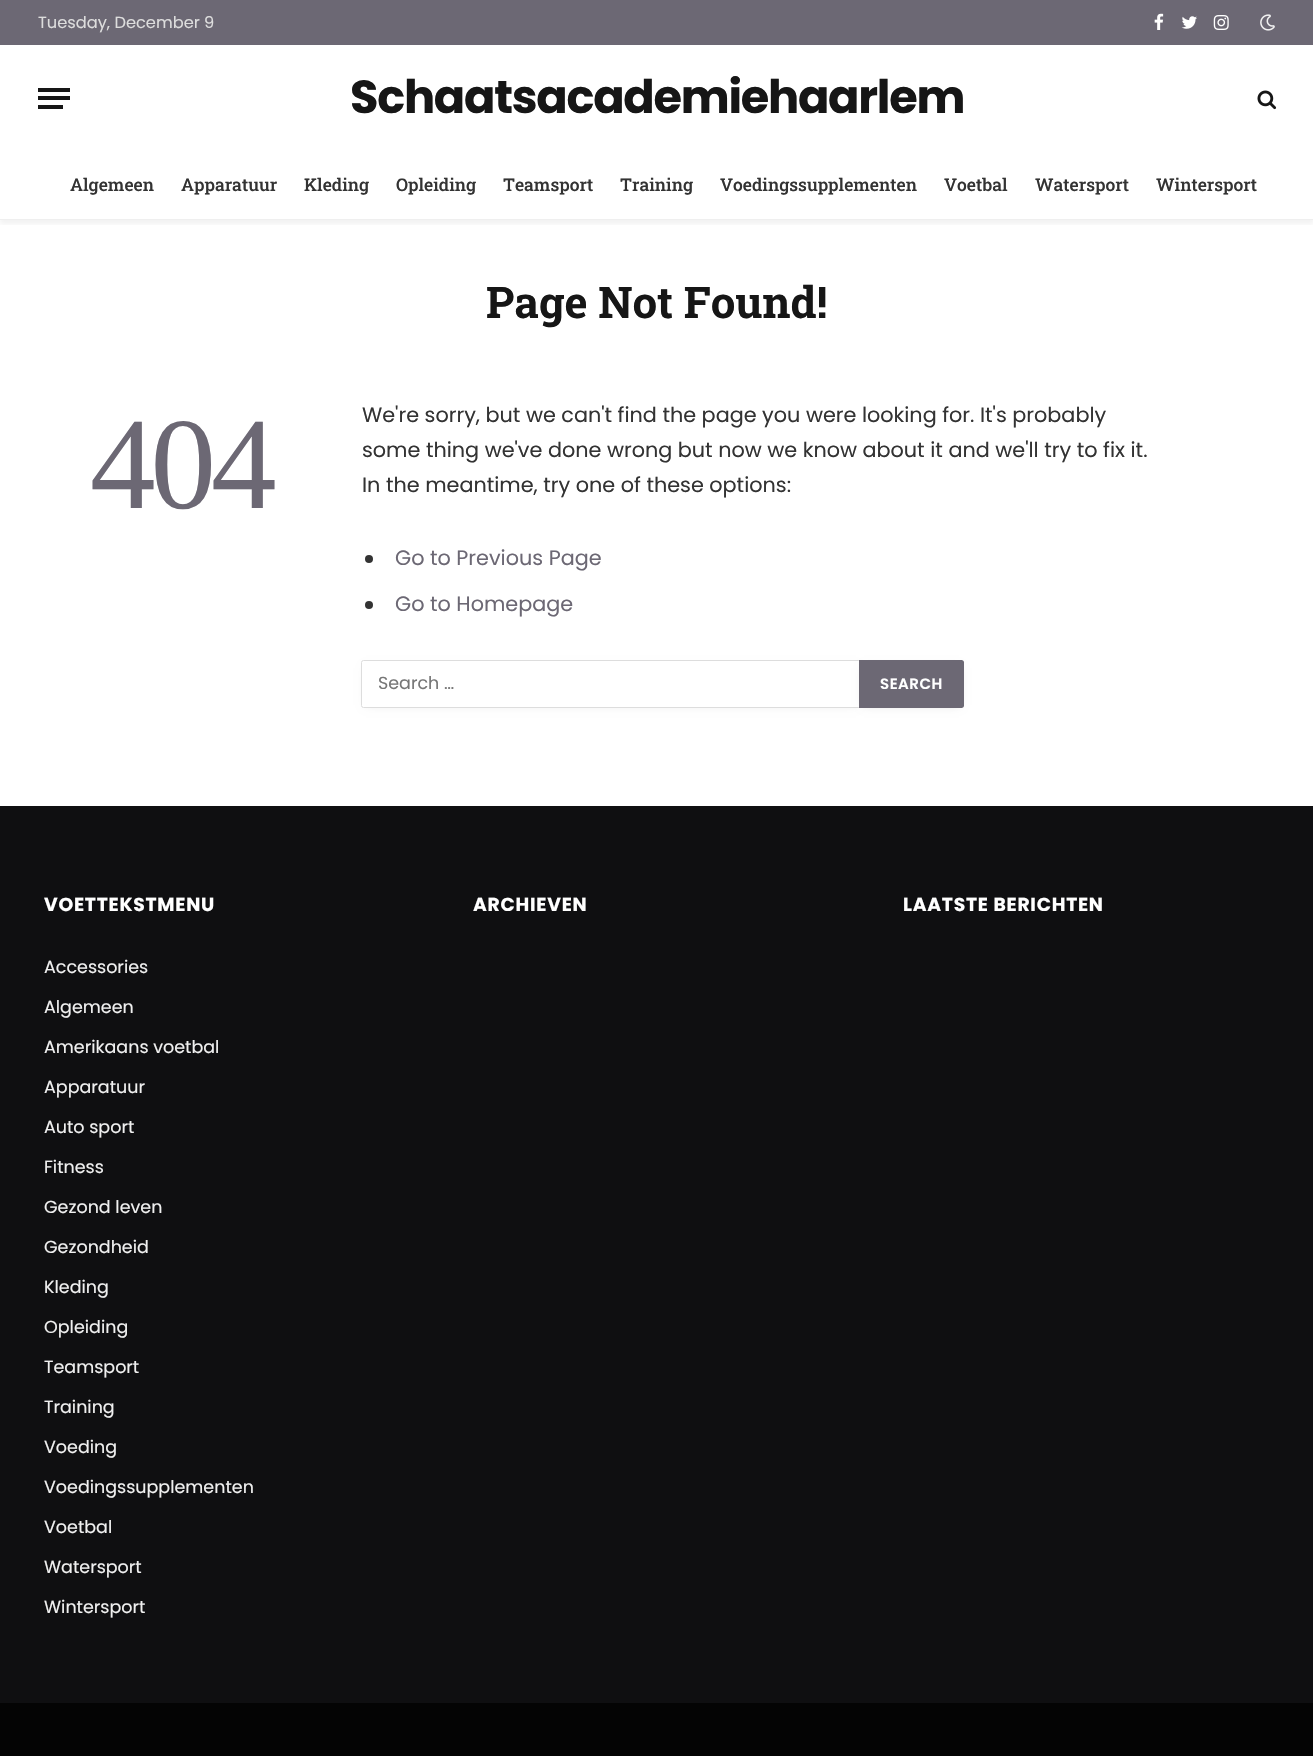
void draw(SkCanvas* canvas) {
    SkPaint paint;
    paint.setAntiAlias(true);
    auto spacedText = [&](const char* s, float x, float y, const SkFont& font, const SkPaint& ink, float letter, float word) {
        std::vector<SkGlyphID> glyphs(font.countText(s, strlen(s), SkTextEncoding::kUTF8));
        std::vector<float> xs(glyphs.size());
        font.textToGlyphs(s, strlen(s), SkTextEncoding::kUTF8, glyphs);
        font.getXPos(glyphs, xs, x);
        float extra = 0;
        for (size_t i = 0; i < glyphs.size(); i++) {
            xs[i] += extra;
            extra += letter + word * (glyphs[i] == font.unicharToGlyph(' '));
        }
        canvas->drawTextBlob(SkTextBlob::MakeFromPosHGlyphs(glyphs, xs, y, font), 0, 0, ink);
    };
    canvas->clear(0xFFFFFFFF);
    canvas->save();
    canvas->clipRect(SkRect::MakeXYWH(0, 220, 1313, 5));
    paint.setColor(0x0D000000);
    paint.setMaskFilter(SkMaskFilter::MakeBlur(kNormal_SkBlurStyle, 2.5f));
    canvas->drawRect(SkRect::MakeXYWH(0, 4, 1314, 220), paint);
    paint.setMaskFilter(nullptr);
    canvas->restore();
    paint.setColor(0xFF6C6874);
    canvas->drawRect(SkRect::MakeXYWH(0, 0, 1313, 45), paint);
    SkFont font1(fontMgr->matchFamilyStyle("Poppins", SkFontStyle::Normal()), 16.25f);
    font1.setSubpixel(true);
    paint.setColor(0xFFDDDDDD);
    canvas->drawString("Tuesday, December 9", 38, 28, font1, paint);
    canvas->drawImageRect(SkImages::DeferredFromEncodedData(SkData::MakeFromFileName("img1.png")), SkRect::MakeXYWH(1154, 13, 10, 17), SkSamplingOptions());
    canvas->drawImageRect(SkImages::DeferredFromEncodedData(SkData::MakeFromFileName("img2.png")), SkRect::MakeXYWH(1181, 16, 16, 13), SkSamplingOptions());
    canvas->drawImageRect(SkImages::DeferredFromEncodedData(SkData::MakeFromFileName("img3.png")), SkRect::MakeXYWH(1213, 15, 16, 15), SkSamplingOptions());
    canvas->drawImageRect(SkImages::DeferredFromEncodedData(SkData::MakeFromFileName("img4.png")), SkRect::MakeXYWH(1260, 14, 15, 17), SkSamplingOptions());
    paint.setColor(0xFF161616);
    canvas->drawRect(SkRect::MakeXYWH(38, 105, 25, 4), paint);
    canvas->drawRect(SkRect::MakeXYWH(38, 88, 32, 4), paint);
    canvas->drawRect(SkRect::MakeXYWH(38, 96, 32, 4), paint);
    SkFont font2(fontMgr->matchFamilyStyle("Poppins", SkFontStyle::Bold()), 46.25f);
    font2.setSubpixel(true);
    spacedText("Schaatsacademiehaarlem", 350, 113, font2, paint, -1.25f, 0);
    canvas->drawImageRect(SkImages::DeferredFromEncodedData(SkData::MakeFromFileName("img5.png")), SkRect::MakeXYWH(1257, 90, 20, 20), SkSamplingOptions());
    paint.setColor(0xFFEFEFEF);
    canvas->drawRect(SkRect::MakeXYWH(0, 219, 1313, 1), paint);
    SkFont font3(fontMgr->matchFamilyStyle("Roboto Slab", SkFontStyle(500, SkFontStyle::kNormal_Width, SkFontStyle::kUpright_Slant)), 17.5f);
    font3.setSubpixel(true);
    paint.setColor(0xFF333333);
    canvas->drawString("Algemeen", 70, 191, font3, paint);
    canvas->drawString("Apparatuur", 181, 191, font3, paint);
    canvas->drawString("Kleding", 304, 191, font3, paint);
    canvas->drawString("Opleiding", 396, 191, font3, paint);
    canvas->drawString("Teamsport", 503, 191, font3, paint);
    canvas->drawString("Training", 620, 191, font3, paint);
    canvas->drawString("Voedingssupplementen", 720, 191, font3, paint);
    canvas->drawString("Voetbal", 944, 191, font3, paint);
    canvas->drawString("Watersport", 1035, 191, font3, paint);
    canvas->drawString("Wintersport", 1156, 191, font3, paint);
    SkFont font4(fontMgr->matchFamilyStyle("Roboto Slab", SkFontStyle::Bold()), 43.75f);
    font4.setSubpixel(true);
    paint.setColor(0xFF161616);
    canvas->drawString("Page Not Found!", 486, 318, font4, paint);
    SkFont font5(fontMgr->matchFamilyStyle("Liberation Serif", SkFontStyle::Normal()), 131);
    font5.setSubpixel(true);
    paint.setColor(0xFF6C6874);
    spacedText("404", 90, 508, font5, paint, -5, 0);
    SkFont font6(fontMgr->matchFamilyStyle("Poppins", SkFontStyle::Normal()), 20.75f);
    font6.setSubpixel(true);
    paint.setColor(0xFF333333);
    canvas->drawString("We're sorry, but we can't find the page you were looking for. It's probably", 362, 422, font6, paint);
    canvas->drawString("some thing we've done wrong but now we know about it and we'll try to fix it.", 362, 457, font6, paint);
    canvas->drawString("In the meantime, try one of these options:", 362, 492, font6, paint);
    canvas->drawCircle(369, 559, 4, paint);
    paint.setColor(0xFF6C6874);
    canvas->drawString("Go to Previous Page", 395, 565, font6, paint);
    paint.setColor(0xFF333333);
    canvas->drawCircle(369, 605, 4, paint);
    paint.setColor(0xFF6C6874);
    canvas->drawString("Go to Homepage", 395, 611, font6, paint);
    paint.setColor(0x1A000000);
    paint.setMaskFilter(SkMaskFilter::MakeBlur(kNormal_SkBlurStyle, 4.5f));
    canvas->drawRect(SkRect::MakeXYWH(366, 668, 490, 37), paint);
    paint.setMaskFilter(nullptr);
    paint.setColor(0xFFFFFFFF);
    canvas->drawRoundRect(SkRect::MakeXYWH(361.5f, 660.5f, 499, 47), 2, 2, paint);
    paint.setStyle(SkPaint::kStroke_Style);
    paint.setStrokeWidth(1);
    paint.setColor(0xFFDDDDDD);
    canvas->drawRoundRect(SkRect::MakeXYWH(361.5f, 660.5f, 499, 47), 2, 2, paint);
    SkFont font7(fontMgr->matchFamilyStyle("Poppins", SkFontStyle::Normal()), 17.5f);
    font7.setSubpixel(true);
    paint.setStyle(SkPaint::kFill_Style);
    paint.setColor(0xFF777777);
    canvas->drawString("Search …", 378, 689, font7, paint);
    paint.setColor(0x29000000);
    paint.setMaskFilter(SkMaskFilter::MakeBlur(kNormal_SkBlurStyle, 4.5f));
    canvas->drawRect(SkRect::MakeXYWH(864, 668, 95, 37), paint);
    paint.setMaskFilter(nullptr);
    paint.setColor(0xFF6C6874);
    canvas->drawPath(SkPathBuilder().moveTo(859, 660).lineTo(961.5f, 660).cubicTo(963, 660, 964, 661, 964, 662.5f).lineTo(964, 705.5f).cubicTo(964, 707, 963, 708, 961.5f, 708).lineTo(859, 708).close().detach(), paint);
    SkFont font8(fontMgr->matchFamilyStyle("Poppins", SkFontStyle(600, SkFontStyle::kNormal_Width, SkFontStyle::kUpright_Slant)), 15);
    font8.setSubpixel(true);
    paint.setColor(0xFFFFFFFF);
    spacedText("SEARCH", 880, 689, font8, paint, 0.5f, 0);
    paint.setColor(0xFF0F0F11);
    canvas->drawRect(SkRect::MakeXYWH(0, 806, 1313, 897), paint);
    SkFont font9(fontMgr->matchFamilyStyle("Poppins", SkFontStyle::Bold()), 18.75f);
    font9.setSubpixel(true);
    paint.setColor(0xFFFFFFFF);
    spacedText("VOETTEKSTMENU", 44, 911, font9, paint, 0.75f, 0);
    paint.setColor(0xFFF0F0F0);
    canvas->drawString("Accessories", 44, 973, font7, paint);
    canvas->drawString("Algemeen", 44, 1013, font7, paint);
    canvas->drawString("Amerikaans voetbal", 44, 1053, font7, paint);
    canvas->drawString("Apparatuur", 44, 1093, font7, paint);
    canvas->drawString("Auto sport", 44, 1133, font7, paint);
    canvas->drawString("Fitness", 44, 1173, font7, paint);
    canvas->drawString("Gezond leven", 44, 1213, font7, paint);
    canvas->drawString("Gezondheid", 44, 1253, font7, paint);
    canvas->drawString("Kleding", 44, 1293, font7, paint);
    canvas->drawString("Opleiding", 44, 1333, font7, paint);
    canvas->drawString("Teamsport", 44, 1373, font7, paint);
    canvas->drawString("Training", 44, 1413, font7, paint);
    canvas->drawString("Voeding", 44, 1453, font7, paint);
    canvas->drawString("Voedingssupplementen", 44, 1493, font7, paint);
    canvas->drawString("Voetbal", 44, 1533, font7, paint);
    canvas->drawString("Watersport", 44, 1573, font7, paint);
    canvas->drawString("Wintersport", 44, 1613, font7, paint);
    paint.setColor(0xFFFFFFFF);
    spacedText("ARCHIEVEN", 473, 911, font9, paint, 0.75f, 0);
    spacedText("LAATSTE BERICHTEN", 903, 911, font9, paint, 0.75f, 0);
    paint.setColor(0xFF040404);
    canvas->drawRect(SkRect::MakeXYWH(0, 1703, 1313, 53), paint);
}
